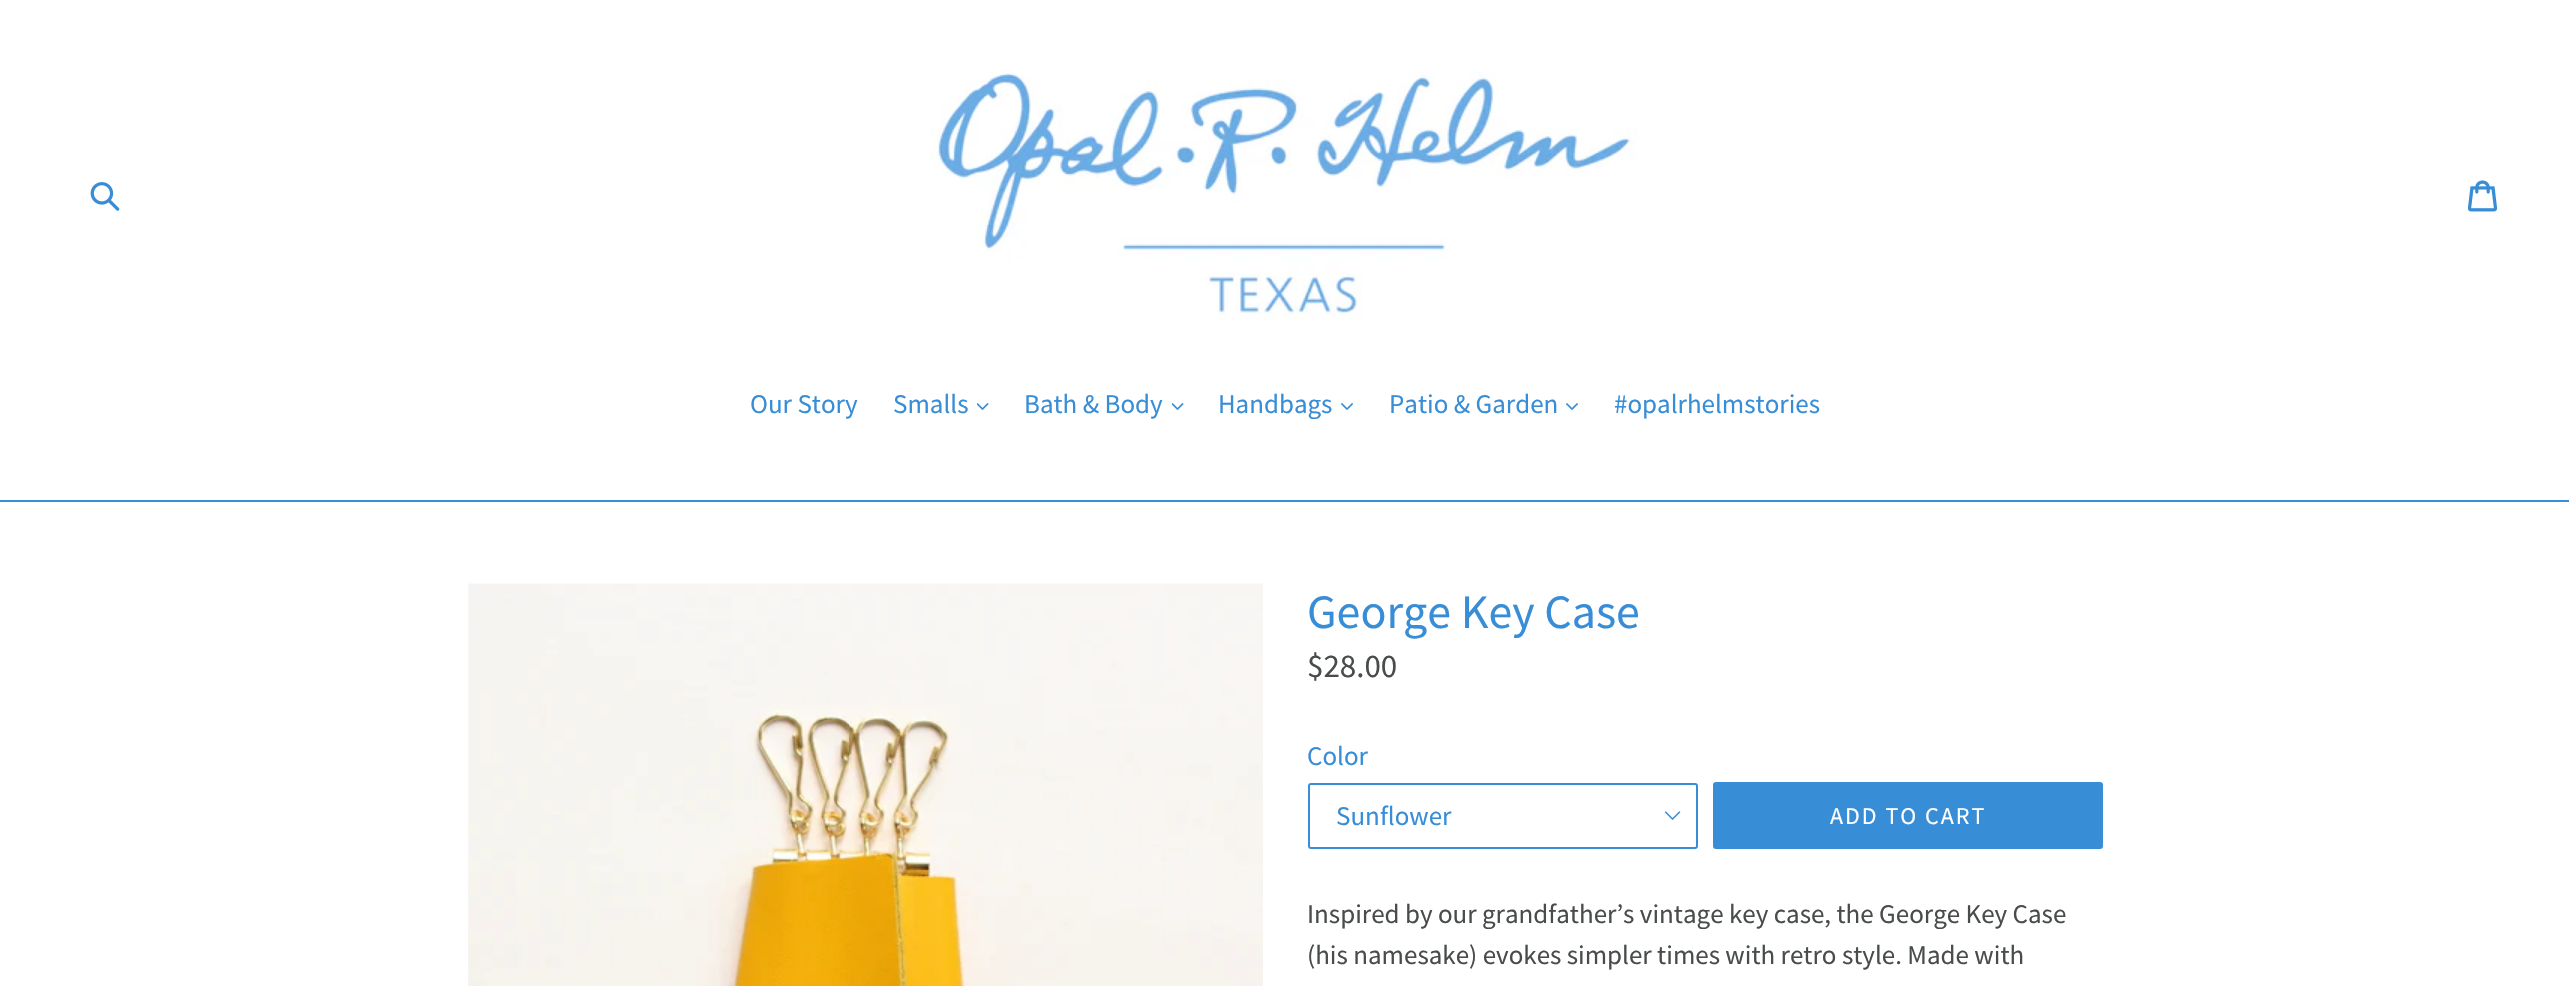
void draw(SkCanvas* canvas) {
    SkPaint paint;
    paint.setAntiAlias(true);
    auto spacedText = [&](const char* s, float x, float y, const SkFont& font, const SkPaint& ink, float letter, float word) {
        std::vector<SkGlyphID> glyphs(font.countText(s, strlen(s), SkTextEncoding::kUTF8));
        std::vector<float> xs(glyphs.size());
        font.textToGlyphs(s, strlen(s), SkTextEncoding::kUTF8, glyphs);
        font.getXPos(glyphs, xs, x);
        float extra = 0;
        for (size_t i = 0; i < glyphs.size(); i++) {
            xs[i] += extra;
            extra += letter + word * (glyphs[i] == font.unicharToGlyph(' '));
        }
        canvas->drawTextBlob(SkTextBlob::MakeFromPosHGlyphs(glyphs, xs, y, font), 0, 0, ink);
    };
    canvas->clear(0xFFFFFFFF);
    canvas->drawImageRect(SkImages::DeferredFromEncodedData(SkData::MakeFromFileName("img1.png")), SkRect::MakeXYWH(90, 182, 30, 29), SkSamplingOptions());
    canvas->drawImageRect(SkImages::DeferredFromEncodedData(SkData::MakeFromFileName("img2.png")), SkRect::MakeXYWH(930, 71, 708, 250), SkSamplingOptions());
    canvas->drawImageRect(SkImages::DeferredFromEncodedData(SkData::MakeFromFileName("img3.png")), SkRect::MakeXYWH(2468, 180, 30, 32), SkSamplingOptions());
    paint.setColor(0xFF388DD7);
    canvas->drawRect(SkRect::MakeXYWH(0, 500, 2569, 2), paint);
    SkFont font1(fontMgr->matchFamilyStyle("Source Sans Pro", SkFontStyle::Normal()), 27);
    font1.setSubpixel(true);
    canvas->drawString("Our Story", 750, 413, font1, paint);
    canvas->drawString("Smalls", 893, 413, font1, paint);
    canvas->drawImageRect(SkImages::DeferredFromEncodedData(SkData::MakeFromFileName("img4.png")), SkRect::MakeXYWH(977, 403, 12, 7), SkSamplingOptions());
    canvas->drawString("Bath & Body", 1024, 413, font1, paint);
    canvas->drawImageRect(SkImages::DeferredFromEncodedData(SkData::MakeFromFileName("img4.png")), SkRect::MakeXYWH(1172, 403, 12, 7), SkSamplingOptions());
    canvas->drawString("Handbags", 1218, 413, font1, paint);
    canvas->drawImageRect(SkImages::DeferredFromEncodedData(SkData::MakeFromFileName("img5.png")), SkRect::MakeXYWH(1341, 403, 12, 7), SkSamplingOptions());
    canvas->drawString("Patio & Garden", 1389, 413, font1, paint);
    canvas->drawImageRect(SkImages::DeferredFromEncodedData(SkData::MakeFromFileName("img5.png")), SkRect::MakeXYWH(1566, 403, 12, 7), SkSamplingOptions());
    canvas->drawString("#opalrhelmstories", 1614, 413, font1, paint);
    canvas->drawImageRect(SkImages::DeferredFromEncodedData(SkData::MakeFromFileName("img6.png")), SkRect::MakeXYWH(468, 583, 795, 403), SkSamplingOptions());
    SkFont font2(fontMgr->matchFamilyStyle("Source Sans Pro", SkFontStyle::Normal()), 48);
    font2.setSubpixel(true);
    canvas->drawString("George Key Case", 1307, 628, font2, paint);
    SkFont font3(fontMgr->matchFamilyStyle("Source Sans Pro", SkFontStyle::Normal()), 33);
    font3.setSubpixel(true);
    paint.setColor(0xFF494C4D);
    canvas->drawString("$28.00", 1307, 677, font3, paint);
    paint.setColor(0xFF388DD7);
    canvas->drawString("Color", 1307, 765, font1, paint);
    canvas->drawImageRect(SkImages::DeferredFromEncodedData(SkData::MakeFromFileName("img7.png")), SkRect::MakeXYWH(1664, 811, 17, 9), SkSamplingOptions());
    paint.setStyle(SkPaint::kStroke_Style);
    paint.setStrokeWidth(2);
    canvas->drawRoundRect(SkRect::MakeXYWH(1309, 784, 388, 64), 2, 2, paint);
    paint.setStyle(SkPaint::kFill_Style);
    canvas->drawString("Sunflower", 1336, 825, font1, paint);
    canvas->drawRoundRect(SkRect::MakeXYWH(1713, 782, 390, 67), 3, 3, paint);
    SkFont font4(fontMgr->matchFamilyStyle("Source Sans Pro", SkFontStyle::Normal()), 24);
    font4.setSubpixel(true);
    paint.setColor(0xFFFFFFFF);
    spacedText("ADD TO CART", 1830, 824, font4, paint, 2, 0);
    paint.setColor(0xFF494C4D);
    canvas->drawString("Inspired by our grandfather’s vintage key case, the George Key Case", 1307, 923, font1, paint);
    canvas->drawString("(his namesake) evokes simpler times with retro style. Made with", 1307, 964, font1, paint);
}
